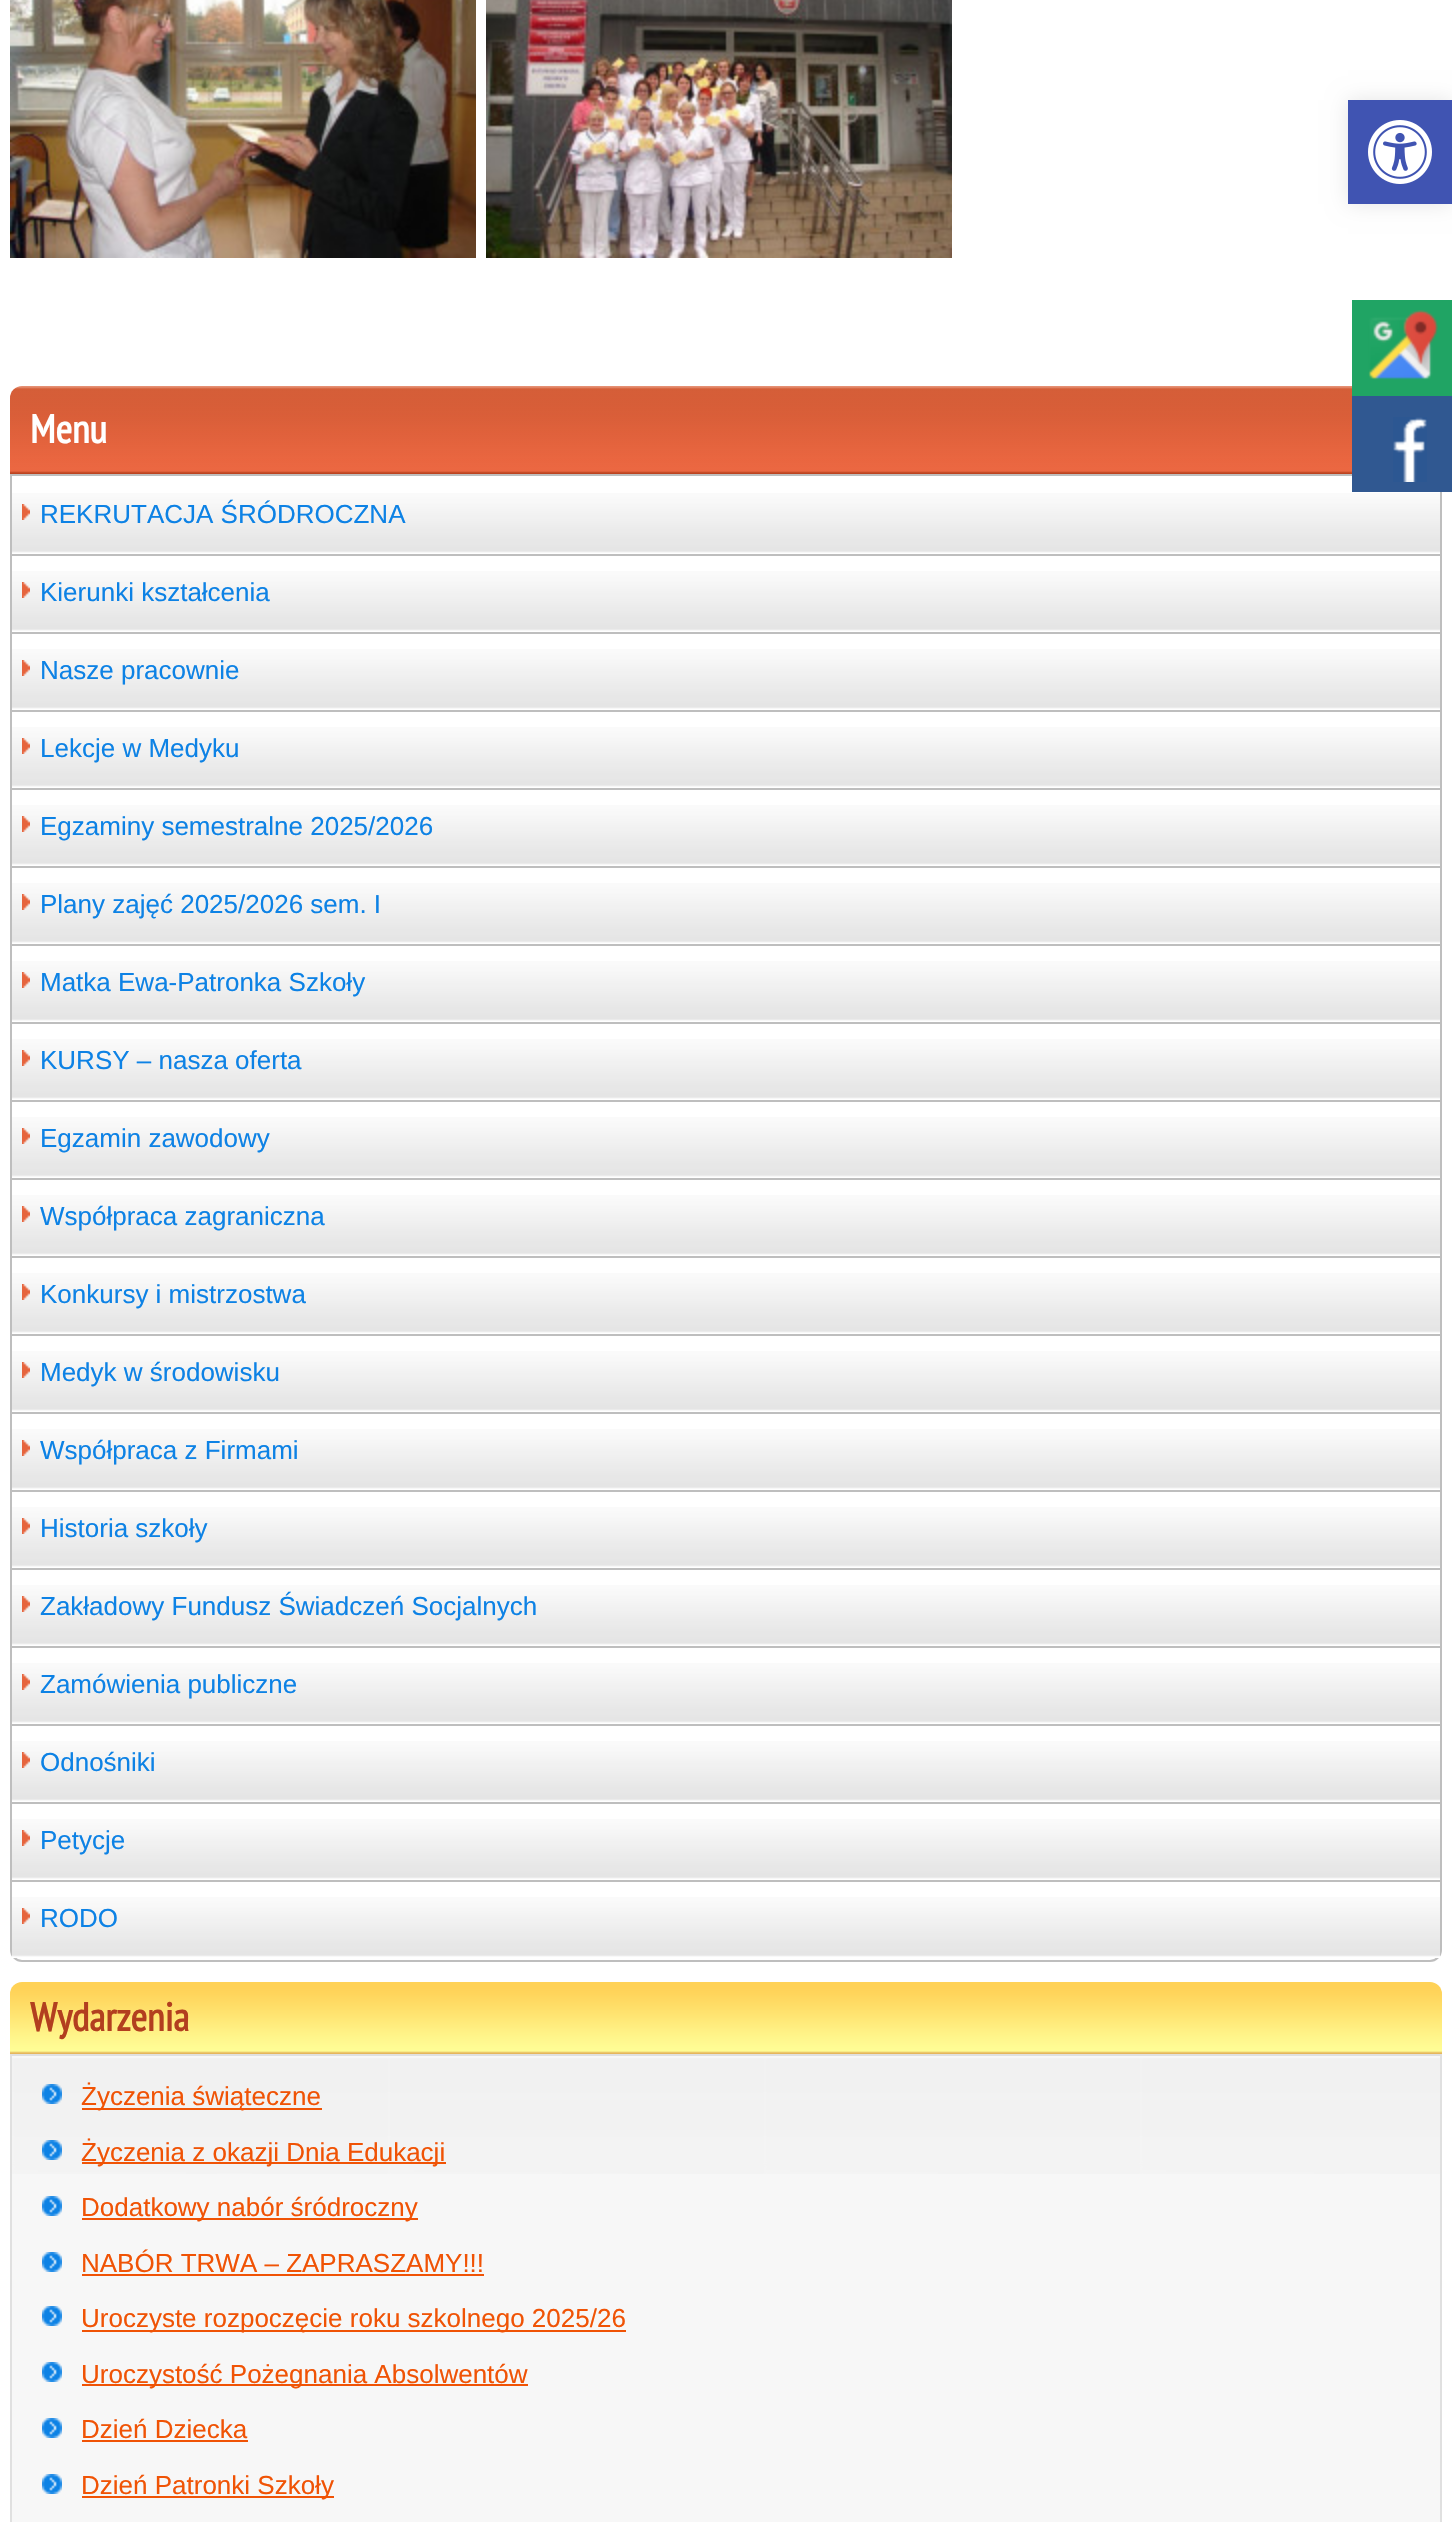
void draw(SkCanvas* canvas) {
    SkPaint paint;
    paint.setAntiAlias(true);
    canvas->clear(0xFFFFFFFF);
    paint.setColor(0x1A000000);
    paint.setMaskFilter(SkMaskFilter::MakeBlur(kNormal_SkBlurStyle, 10));
    canvas->drawRect(SkRect::MakeXYWH(1348, 100, 104, 104), paint);
    paint.setMaskFilter(nullptr);
    paint.setColor(0xFF4054B2);
    canvas->drawRect(SkRect::MakeXYWH(1348, 100, 104, 104), paint);
    canvas->drawImageRect(SkImages::DeferredFromEncodedData(SkData::MakeFromFileName("img1.png")), SkRect::MakeXYWH(1368, 120, 64, 64), SkSamplingOptions());
    canvas->drawImageRect(SkImages::DeferredFromEncodedData(SkData::MakeFromFileName("img2.png")), SkRect::MakeXYWH(10, 0, 466, 258), SkSamplingOptions());
    canvas->drawImageRect(SkImages::DeferredFromEncodedData(SkData::MakeFromFileName("img3.png")), SkRect::MakeXYWH(486, 0, 466, 258), SkSamplingOptions());
    canvas->drawImageRect(SkImages::DeferredFromEncodedData(SkData::MakeFromFileName("img4.png")), SkRect::MakeXYWH(10, 386, 1342, 88), SkSamplingOptions());
    SkFont font1(fontMgr->matchFamilyStyle("PT Sans Narrow", SkFontStyle::Bold()), 40);
    font1.setSubpixel(true);
    paint.setColor(0xFFFFFFFF);
    canvas->drawString("Menu", 30, 443, font1, paint);
    paint.setStyle(SkPaint::kStroke_Style);
    paint.setStrokeWidth(2);
    paint.setColor(0xFFBEBEBE);
    canvas->drawPath(SkPathBuilder().moveTo(11, 475).lineTo(1441, 475).lineTo(1441, 1950).cubicTo(1441, 1956, 1436, 1961, 1430, 1961).lineTo(22, 1961).cubicTo(16, 1961, 11, 1956, 11, 1950).close().detach(), paint);
    canvas->drawImageRect(SkImages::DeferredFromEncodedData(SkData::MakeFromFileName("img5.png")), SkRect::MakeXYWH(12, 493, 1428, 60), SkSamplingOptions());
    canvas->drawImageRect(SkImages::DeferredFromEncodedData(SkData::MakeFromFileName("img6.png")), SkRect::MakeXYWH(22, 504, 8, 16), SkSamplingOptions());
    SkFont font2(fontMgr->matchFamilyStyle("Liberation Sans", SkFontStyle::Normal()), 26);
    font2.setSubpixel(true);
    paint.setStyle(SkPaint::kFill_Style);
    paint.setColor(0xFF0D82E5);
    canvas->drawString("REKRUTACJA ŚRÓDROCZNA", 40, 523, font2, paint);
    paint.setColor(0xFFBEBEBE);
    canvas->drawRect(SkRect::MakeXYWH(12, 554, 1428, 2), paint);
    canvas->drawImageRect(SkImages::DeferredFromEncodedData(SkData::MakeFromFileName("img5.png")), SkRect::MakeXYWH(12, 571, 1428, 60), SkSamplingOptions());
    canvas->drawImageRect(SkImages::DeferredFromEncodedData(SkData::MakeFromFileName("img6.png")), SkRect::MakeXYWH(22, 582, 8, 16), SkSamplingOptions());
    paint.setColor(0xFF0D82E5);
    canvas->drawString("Kierunki kształcenia", 40, 601, font2, paint);
    paint.setColor(0xFFBEBEBE);
    canvas->drawRect(SkRect::MakeXYWH(12, 632, 1428, 2), paint);
    canvas->drawImageRect(SkImages::DeferredFromEncodedData(SkData::MakeFromFileName("img5.png")), SkRect::MakeXYWH(12, 649, 1428, 60), SkSamplingOptions());
    canvas->drawImageRect(SkImages::DeferredFromEncodedData(SkData::MakeFromFileName("img6.png")), SkRect::MakeXYWH(22, 660, 8, 16), SkSamplingOptions());
    paint.setColor(0xFF0D82E5);
    canvas->drawString("Nasze pracownie", 40, 679, font2, paint);
    paint.setColor(0xFFBEBEBE);
    canvas->drawRect(SkRect::MakeXYWH(12, 710, 1428, 2), paint);
    canvas->drawImageRect(SkImages::DeferredFromEncodedData(SkData::MakeFromFileName("img5.png")), SkRect::MakeXYWH(12, 727, 1428, 60), SkSamplingOptions());
    canvas->drawImageRect(SkImages::DeferredFromEncodedData(SkData::MakeFromFileName("img6.png")), SkRect::MakeXYWH(22, 738, 8, 16), SkSamplingOptions());
    paint.setColor(0xFF0D82E5);
    canvas->drawString("Lekcje w Medyku", 40, 757, font2, paint);
    paint.setColor(0xFFBEBEBE);
    canvas->drawRect(SkRect::MakeXYWH(12, 788, 1428, 2), paint);
    canvas->drawImageRect(SkImages::DeferredFromEncodedData(SkData::MakeFromFileName("img5.png")), SkRect::MakeXYWH(12, 805, 1428, 60), SkSamplingOptions());
    canvas->drawImageRect(SkImages::DeferredFromEncodedData(SkData::MakeFromFileName("img6.png")), SkRect::MakeXYWH(22, 816, 8, 16), SkSamplingOptions());
    paint.setColor(0xFF0D82E5);
    canvas->drawString("Egzaminy semestralne 2025/2026", 40, 835, font2, paint);
    paint.setColor(0xFFBEBEBE);
    canvas->drawRect(SkRect::MakeXYWH(12, 866, 1428, 2), paint);
    canvas->drawImageRect(SkImages::DeferredFromEncodedData(SkData::MakeFromFileName("img5.png")), SkRect::MakeXYWH(12, 883, 1428, 60), SkSamplingOptions());
    canvas->drawImageRect(SkImages::DeferredFromEncodedData(SkData::MakeFromFileName("img6.png")), SkRect::MakeXYWH(22, 894, 8, 16), SkSamplingOptions());
    paint.setColor(0xFF0D82E5);
    canvas->drawString("Plany zajęć 2025/2026 sem. I", 40, 913, font2, paint);
    paint.setColor(0xFFBEBEBE);
    canvas->drawRect(SkRect::MakeXYWH(12, 944, 1428, 2), paint);
    canvas->drawImageRect(SkImages::DeferredFromEncodedData(SkData::MakeFromFileName("img5.png")), SkRect::MakeXYWH(12, 961, 1428, 60), SkSamplingOptions());
    canvas->drawImageRect(SkImages::DeferredFromEncodedData(SkData::MakeFromFileName("img6.png")), SkRect::MakeXYWH(22, 972, 8, 16), SkSamplingOptions());
    paint.setColor(0xFF0D82E5);
    canvas->drawString("Matka Ewa-Patronka Szkoły", 40, 991, font2, paint);
    paint.setColor(0xFFBEBEBE);
    canvas->drawRect(SkRect::MakeXYWH(12, 1022, 1428, 2), paint);
    canvas->drawImageRect(SkImages::DeferredFromEncodedData(SkData::MakeFromFileName("img5.png")), SkRect::MakeXYWH(12, 1039, 1428, 60), SkSamplingOptions());
    canvas->drawImageRect(SkImages::DeferredFromEncodedData(SkData::MakeFromFileName("img6.png")), SkRect::MakeXYWH(22, 1050, 8, 16), SkSamplingOptions());
    paint.setColor(0xFF0D82E5);
    canvas->drawString("KURSY – nasza oferta", 40, 1069, font2, paint);
    paint.setColor(0xFFBEBEBE);
    canvas->drawRect(SkRect::MakeXYWH(12, 1100, 1428, 2), paint);
    canvas->drawImageRect(SkImages::DeferredFromEncodedData(SkData::MakeFromFileName("img5.png")), SkRect::MakeXYWH(12, 1117, 1428, 60), SkSamplingOptions());
    canvas->drawImageRect(SkImages::DeferredFromEncodedData(SkData::MakeFromFileName("img6.png")), SkRect::MakeXYWH(22, 1128, 8, 16), SkSamplingOptions());
    paint.setColor(0xFF0D82E5);
    canvas->drawString("Egzamin zawodowy", 40, 1147, font2, paint);
    paint.setColor(0xFFBEBEBE);
    canvas->drawRect(SkRect::MakeXYWH(12, 1178, 1428, 2), paint);
    canvas->drawImageRect(SkImages::DeferredFromEncodedData(SkData::MakeFromFileName("img5.png")), SkRect::MakeXYWH(12, 1195, 1428, 60), SkSamplingOptions());
    canvas->drawImageRect(SkImages::DeferredFromEncodedData(SkData::MakeFromFileName("img6.png")), SkRect::MakeXYWH(22, 1206, 8, 16), SkSamplingOptions());
    paint.setColor(0xFF0D82E5);
    canvas->drawString("Współpraca zagraniczna", 40, 1225, font2, paint);
    paint.setColor(0xFFBEBEBE);
    canvas->drawRect(SkRect::MakeXYWH(12, 1256, 1428, 2), paint);
    canvas->drawImageRect(SkImages::DeferredFromEncodedData(SkData::MakeFromFileName("img5.png")), SkRect::MakeXYWH(12, 1273, 1428, 60), SkSamplingOptions());
    canvas->drawImageRect(SkImages::DeferredFromEncodedData(SkData::MakeFromFileName("img6.png")), SkRect::MakeXYWH(22, 1284, 8, 16), SkSamplingOptions());
    paint.setColor(0xFF0D82E5);
    canvas->drawString("Konkursy i mistrzostwa", 40, 1303, font2, paint);
    paint.setColor(0xFFBEBEBE);
    canvas->drawRect(SkRect::MakeXYWH(12, 1334, 1428, 2), paint);
    canvas->drawImageRect(SkImages::DeferredFromEncodedData(SkData::MakeFromFileName("img5.png")), SkRect::MakeXYWH(12, 1351, 1428, 60), SkSamplingOptions());
    canvas->drawImageRect(SkImages::DeferredFromEncodedData(SkData::MakeFromFileName("img6.png")), SkRect::MakeXYWH(22, 1362, 8, 16), SkSamplingOptions());
    paint.setColor(0xFF0D82E5);
    canvas->drawString("Medyk w środowisku", 40, 1381, font2, paint);
    paint.setColor(0xFFBEBEBE);
    canvas->drawRect(SkRect::MakeXYWH(12, 1412, 1428, 2), paint);
    canvas->drawImageRect(SkImages::DeferredFromEncodedData(SkData::MakeFromFileName("img5.png")), SkRect::MakeXYWH(12, 1429, 1428, 60), SkSamplingOptions());
    canvas->drawImageRect(SkImages::DeferredFromEncodedData(SkData::MakeFromFileName("img6.png")), SkRect::MakeXYWH(22, 1440, 8, 16), SkSamplingOptions());
    paint.setColor(0xFF0D82E5);
    canvas->drawString("Współpraca z Firmami", 40, 1459, font2, paint);
    paint.setColor(0xFFBEBEBE);
    canvas->drawRect(SkRect::MakeXYWH(12, 1490, 1428, 2), paint);
    canvas->drawImageRect(SkImages::DeferredFromEncodedData(SkData::MakeFromFileName("img5.png")), SkRect::MakeXYWH(12, 1507, 1428, 60), SkSamplingOptions());
    canvas->drawImageRect(SkImages::DeferredFromEncodedData(SkData::MakeFromFileName("img6.png")), SkRect::MakeXYWH(22, 1518, 8, 16), SkSamplingOptions());
    paint.setColor(0xFF0D82E5);
    canvas->drawString("Historia szkoły", 40, 1537, font2, paint);
    paint.setColor(0xFFBEBEBE);
    canvas->drawRect(SkRect::MakeXYWH(12, 1568, 1428, 2), paint);
    canvas->drawImageRect(SkImages::DeferredFromEncodedData(SkData::MakeFromFileName("img5.png")), SkRect::MakeXYWH(12, 1585, 1428, 60), SkSamplingOptions());
    canvas->drawImageRect(SkImages::DeferredFromEncodedData(SkData::MakeFromFileName("img6.png")), SkRect::MakeXYWH(22, 1596, 8, 16), SkSamplingOptions());
    paint.setColor(0xFF0D82E5);
    canvas->drawString("Zakładowy Fundusz Świadczeń Socjalnych", 40, 1615, font2, paint);
    paint.setColor(0xFFBEBEBE);
    canvas->drawRect(SkRect::MakeXYWH(12, 1646, 1428, 2), paint);
    canvas->drawImageRect(SkImages::DeferredFromEncodedData(SkData::MakeFromFileName("img5.png")), SkRect::MakeXYWH(12, 1663, 1428, 60), SkSamplingOptions());
    canvas->drawImageRect(SkImages::DeferredFromEncodedData(SkData::MakeFromFileName("img6.png")), SkRect::MakeXYWH(22, 1674, 8, 16), SkSamplingOptions());
    paint.setColor(0xFF0D82E5);
    canvas->drawString("Zamówienia publiczne", 40, 1693, font2, paint);
    paint.setColor(0xFFBEBEBE);
    canvas->drawRect(SkRect::MakeXYWH(12, 1724, 1428, 2), paint);
    canvas->drawImageRect(SkImages::DeferredFromEncodedData(SkData::MakeFromFileName("img5.png")), SkRect::MakeXYWH(12, 1741, 1428, 60), SkSamplingOptions());
    canvas->drawImageRect(SkImages::DeferredFromEncodedData(SkData::MakeFromFileName("img6.png")), SkRect::MakeXYWH(22, 1752, 8, 16), SkSamplingOptions());
    paint.setColor(0xFF0D82E5);
    canvas->drawString("Odnośniki", 40, 1771, font2, paint);
    paint.setColor(0xFFBEBEBE);
    canvas->drawRect(SkRect::MakeXYWH(12, 1802, 1428, 2), paint);
    canvas->drawImageRect(SkImages::DeferredFromEncodedData(SkData::MakeFromFileName("img5.png")), SkRect::MakeXYWH(12, 1819, 1428, 60), SkSamplingOptions());
    canvas->drawImageRect(SkImages::DeferredFromEncodedData(SkData::MakeFromFileName("img6.png")), SkRect::MakeXYWH(22, 1830, 8, 16), SkSamplingOptions());
    paint.setColor(0xFF0D82E5);
    canvas->drawString("Petycje", 40, 1849, font2, paint);
    paint.setColor(0xFFBEBEBE);
    canvas->drawRect(SkRect::MakeXYWH(12, 1880, 1428, 2), paint);
    paint.setColor(0xFFFFFFFF);
    canvas->drawRect(SkRect::MakeXYWH(12, 1950, 1428, 8), paint);
    canvas->drawImageRect(SkImages::DeferredFromEncodedData(SkData::MakeFromFileName("img5.png")), SkRect::MakeXYWH(12, 1897, 1428, 60), SkSamplingOptions());
    canvas->drawImageRect(SkImages::DeferredFromEncodedData(SkData::MakeFromFileName("img6.png")), SkRect::MakeXYWH(22, 1908, 8, 16), SkSamplingOptions());
    paint.setColor(0xFF0D82E5);
    canvas->drawString("RODO", 40, 1927, font2, paint);
    canvas->drawImageRect(SkImages::DeferredFromEncodedData(SkData::MakeFromFileName("img7.png")), SkRect::MakeXYWH(10, 1982, 1432, 72), SkSamplingOptions());
    paint.setColor(0xFFB23F1F);
    canvas->drawString("Wydarzenia", 30, 2031, font1, paint);
    paint.setColor(0xFFF7F7F7);
    canvas->drawRect(SkRect::MakeXYWH(12, 2056, 1428, 466), paint);
    canvas->drawImageRect(SkImages::DeferredFromEncodedData(SkData::MakeFromFileName("img8.png")), SkRect::MakeXYWH(12, 2058, 1428, 116), SkSamplingOptions());
    paint.setStyle(SkPaint::kStroke_Style);
    paint.setColor(0xFFE0E0E0);
    canvas->drawRect(SkRect::MakeXYWH(11, 2055, 1430, 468), paint);
    canvas->drawImageRect(SkImages::DeferredFromEncodedData(SkData::MakeFromFileName("img9.png")), SkRect::MakeXYWH(42, 2084, 20, 20), SkSamplingOptions());
    paint.setStyle(SkPaint::kFill_Style);
    paint.setColor(0xFFF05305);
    canvas->drawRect(SkRect::MakeXYWH(82, 2108, 240, 2), paint);
    canvas->drawString("Życzenia świąteczne", 81, 2105, font2, paint);
    canvas->drawImageRect(SkImages::DeferredFromEncodedData(SkData::MakeFromFileName("img10.png")), SkRect::MakeXYWH(42, 2140, 20, 20), SkSamplingOptions());
    canvas->drawRect(SkRect::MakeXYWH(82, 2162, 364, 2), paint);
    canvas->drawString("Życzenia z okazji Dnia Edukacji", 81, 2161, font2, paint);
    canvas->drawImageRect(SkImages::DeferredFromEncodedData(SkData::MakeFromFileName("img11.png")), SkRect::MakeXYWH(42, 2196, 20, 20), SkSamplingOptions());
    canvas->drawRect(SkRect::MakeXYWH(82, 2218, 336, 2), paint);
    canvas->drawString("Dodatkowy nabór śródroczny", 81, 2216, font2, paint);
    canvas->drawImageRect(SkImages::DeferredFromEncodedData(SkData::MakeFromFileName("img11.png")), SkRect::MakeXYWH(42, 2252, 20, 20), SkSamplingOptions());
    canvas->drawString("NABÓR TRWA – ZAPRASZAMY!!!", 81, 2272, font2, paint);
    canvas->drawRect(SkRect::MakeXYWH(82, 2274, 402, 2), paint);
    canvas->drawImageRect(SkImages::DeferredFromEncodedData(SkData::MakeFromFileName("img11.png")), SkRect::MakeXYWH(42, 2306, 20, 20), SkSamplingOptions());
    canvas->drawRect(SkRect::MakeXYWH(82, 2330, 544, 2), paint);
    canvas->drawString("Uroczyste rozpoczęcie roku szkolnego 2025/26", 81, 2327, font2, paint);
    canvas->drawImageRect(SkImages::DeferredFromEncodedData(SkData::MakeFromFileName("img11.png")), SkRect::MakeXYWH(42, 2362, 20, 20), SkSamplingOptions());
    canvas->drawRect(SkRect::MakeXYWH(82, 2384, 446, 2), paint);
    canvas->drawString("Uroczystość Pożegnania Absolwentów", 81, 2383, font2, paint);
    canvas->drawImageRect(SkImages::DeferredFromEncodedData(SkData::MakeFromFileName("img11.png")), SkRect::MakeXYWH(42, 2418, 20, 20), SkSamplingOptions());
    canvas->drawString("Dzień Dziecka", 81, 2438, font2, paint);
    canvas->drawRect(SkRect::MakeXYWH(82, 2440, 166, 2), paint);
    canvas->drawImageRect(SkImages::DeferredFromEncodedData(SkData::MakeFromFileName("img11.png")), SkRect::MakeXYWH(42, 2474, 20, 20), SkSamplingOptions());
    canvas->drawRect(SkRect::MakeXYWH(82, 2496, 252, 2), paint);
    canvas->drawString("Dzień Patronki Szkoły", 81, 2494, font2, paint);
    paint.setColor(0xFF20A464);
    canvas->drawRect(SkRect::MakeXYWH(1352, 300, 100, 96), paint);
    canvas->drawImageRect(SkImages::DeferredFromEncodedData(SkData::MakeFromFileName("img12.png")), SkRect::MakeXYWH(1368, 310, 70, 70), SkSamplingOptions());
    paint.setColor(0xFF305891);
    canvas->drawRect(SkRect::MakeXYWH(1352, 396, 100, 96), paint);
    canvas->drawImageRect(SkImages::DeferredFromEncodedData(SkData::MakeFromFileName("img13.png")), SkRect::MakeXYWH(1393, 417, 34, 65), SkSamplingOptions());
}
